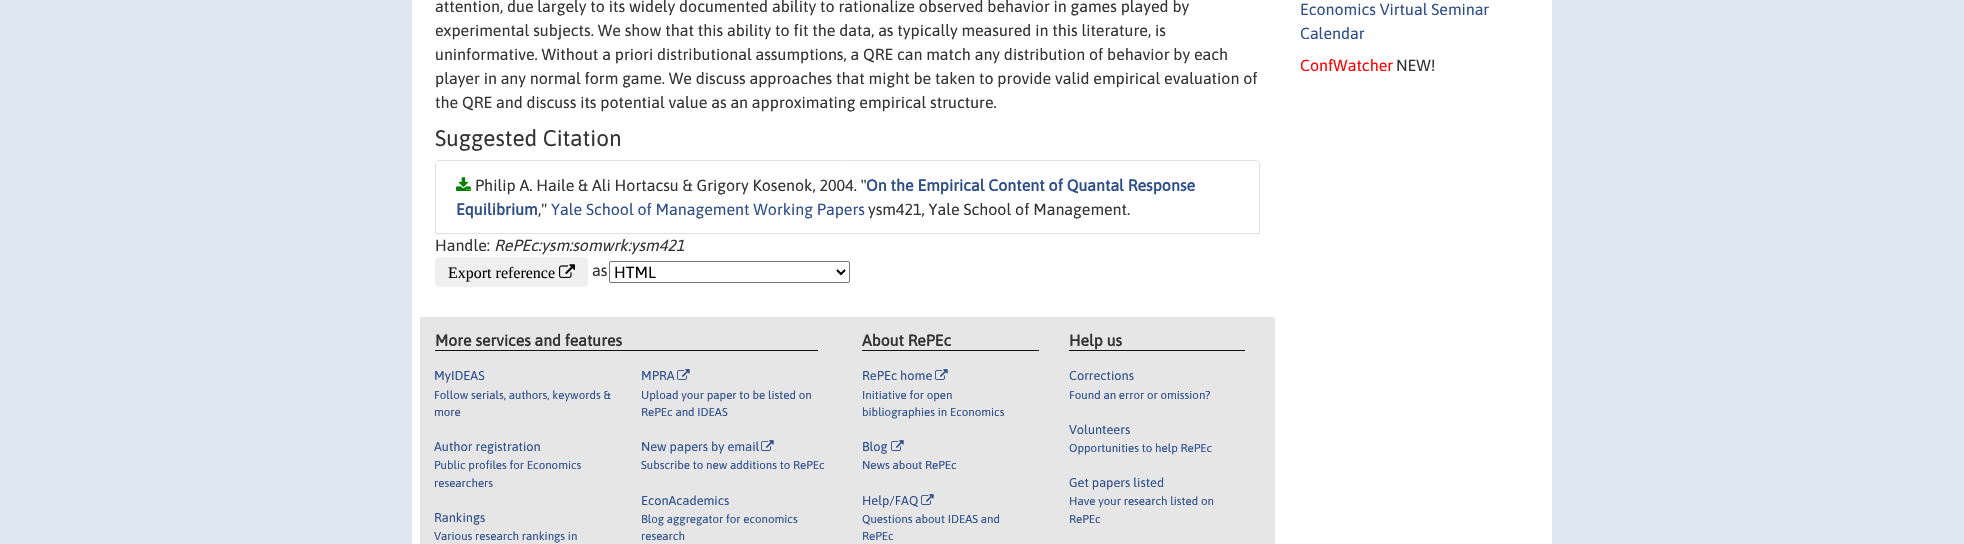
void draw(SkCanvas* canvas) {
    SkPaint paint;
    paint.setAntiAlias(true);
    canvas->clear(0xFFDFE7F2);
    paint.setColor(0xFFFFFFFF);
    canvas->drawRect(SkRect::MakeXYWH(412, 0, 1140, 544), paint);
    SkFont font1(fontMgr->matchFamilyStyle("Asap", SkFontStyle::Normal()), 16);
    font1.setSubpixel(true);
    paint.setColor(0xFF333333);
    canvas->drawString("attention, due largely to its widely documented ability to rationalize observed behavior in games played by", 435, 12, font1, paint);
    canvas->drawString("experimental subjects. We show that this ability to fit the data, as typically measured in this literature, is", 435, 36, font1, paint);
    canvas->drawString("uninformative. Without a priori distributional assumptions, a QRE can match any distribution of behavior by each", 435, 60, font1, paint);
    canvas->drawString("player in any normal form game. We discuss approaches that might be taken to provide valid empirical evaluation of", 435, 84, font1, paint);
    canvas->drawString("the QRE and discuss its potential value as an approximating empirical structure.", 435, 108, font1, paint);
    SkFont font2(fontMgr->matchFamilyStyle("Asap", SkFontStyle::Normal()), 22.5f);
    font2.setSubpixel(true);
    canvas->drawString("Suggested Citation", 435, 146, font2, paint);
    paint.setStyle(SkPaint::kStroke_Style);
    paint.setStrokeWidth(1);
    paint.setColor(0xFFDFDFDF);
    canvas->drawPath(SkPathBuilder().moveTo(439, 160.5f).lineTo(1256, 160.5f).cubicTo(1258, 160.5f, 1259.5f, 162, 1259.5f, 164).lineTo(1259.5f, 233.5f).lineTo(435.5f, 233.5f).lineTo(435.5f, 164).cubicTo(435.5f, 162, 437, 160.5f, 439, 160.5f).close().detach(), paint);
    canvas->drawImageRect(SkImages::DeferredFromEncodedData(SkData::MakeFromFileName("img1.png")), SkRect::MakeXYWH(456, 177, 15, 14), SkSamplingOptions());
    paint.setStyle(SkPaint::kFill_Style);
    paint.setColor(0xFF333333);
    canvas->drawString("Philip A. Haile & Ali Hortacsu & Grigory Kosenok, 2004. \"", 475, 191, font1, paint);
    SkFont font3(fontMgr->matchFamilyStyle("Asap", SkFontStyle::Bold()), 16);
    font3.setSubpixel(true);
    paint.setColor(0xFF2D4E8B);
    canvas->drawString("On the Empirical Content of Quantal Response", 866, 191, font3, paint);
    canvas->drawString("Equilibrium", 456, 215, font3, paint);
    paint.setColor(0xFF333333);
    canvas->drawString(",\"", 538, 215, font1, paint);
    paint.setColor(0xFF2D4E8B);
    canvas->drawString("Yale School of Management Working Papers", 551, 215, font1, paint);
    paint.setColor(0xFF333333);
    canvas->drawString("ysm421, Yale School of Management.", 868, 215, font1, paint);
    canvas->drawString("Handle:", 435, 251, font1, paint);
    SkFont font4(fontMgr->matchFamilyStyle("Asap", SkFontStyle::Italic()), 16);
    font4.setSubpixel(true);
    canvas->drawString("RePEc:ysm:somwrk:ysm421", 494, 251, font4, paint);
    paint.setColor(0xFFEFEFEF);
    canvas->drawRoundRect(SkRect::MakeXYWH(435, 257, 153, 30), 4, 4, paint);
    SkFont font5(fontMgr->matchFamilyStyle("Liberation Serif", SkFontStyle::Normal()), 16);
    font5.setSubpixel(true);
    paint.setColor(0xFF000000);
    canvas->drawString("Export reference", 448, 278, font5, paint);
    canvas->drawImageRect(SkImages::DeferredFromEncodedData(SkData::MakeFromFileName("img2.png")), SkRect::MakeXYWH(559, 264, 16, 14), SkSamplingOptions());
    paint.setColor(0xFF333333);
    canvas->drawString("as", 592, 276, font1, paint);
    paint.setStyle(SkPaint::kStroke_Style);
    paint.setColor(0xFF767676);
    canvas->drawRoundRect(SkRect::MakeXYWH(609.5f, 261.5f, 240, 21), 1.5f, 1.5f, paint);
    paint.setStrokeWidth(2);
    paint.setColor(0xFF000000);
    canvas->drawPath(SkPathBuilder().moveTo(837, 270).lineTo(841, 274).lineTo(845, 270).detach(), paint);
    paint.setStyle(SkPaint::kFill_Style);
    canvas->drawString("HTML", 614, 278, font1, paint);
    paint.setColor(0xFFE6E6E6);
    canvas->drawRect(SkRect::MakeXYWH(420, 317, 855, 227), paint);
    paint.setColor(0xFF111111);
    canvas->drawRect(SkRect::MakeXYWH(435, 350, 383, 1), paint);
    SkFont font6(fontMgr->matchFamilyStyle("Asap", SkFontStyle::Bold()), 15.8f);
    font6.setSubpixel(true);
    paint.setColor(0xFF333333);
    canvas->drawString("More services and features", 435, 346, font6, paint);
    SkFont font7(fontMgr->matchFamilyStyle("Asap", SkFontStyle::Normal()), 12.75f);
    font7.setSubpixel(true);
    paint.setColor(0xFF2D4E8B);
    canvas->drawString("MyIDEAS", 434, 380, font7, paint);
    SkFont font8(fontMgr->matchFamilyStyle("Asap", SkFontStyle::Normal()), 11.5f);
    font8.setSubpixel(true);
    canvas->drawString("Follow serials, authors, keywords &", 434, 399, font8, paint);
    canvas->drawString("more", 434, 416, font8, paint);
    canvas->drawString("Author registration", 434, 451, font7, paint);
    canvas->drawString("Public profiles for Economics", 434, 469, font8, paint);
    canvas->drawString("researchers", 434, 487, font8, paint);
    canvas->drawString("Rankings", 434, 522, font7, paint);
    canvas->drawString("Various research rankings in", 434, 540, font8, paint);
    canvas->drawString("MPRA", 641, 380, font7, paint);
    canvas->drawImageRect(SkImages::DeferredFromEncodedData(SkData::MakeFromFileName("img3.png")), SkRect::MakeXYWH(677, 369, 13, 11), SkSamplingOptions());
    canvas->drawString("Upload your paper to be listed on", 641, 399, font8, paint);
    canvas->drawString("RePEc and IDEAS", 641, 416, font8, paint);
    canvas->drawString("New papers by email", 641, 451, font7, paint);
    canvas->drawImageRect(SkImages::DeferredFromEncodedData(SkData::MakeFromFileName("img3.png")), SkRect::MakeXYWH(761, 440, 13, 11), SkSamplingOptions());
    canvas->drawString("Subscribe to new additions to RePEc", 641, 469, font8, paint);
    canvas->drawString("EconAcademics", 641, 505, font7, paint);
    canvas->drawString("Blog aggregator for economics", 641, 523, font8, paint);
    canvas->drawString("research", 641, 540, font8, paint);
    paint.setColor(0xFF111111);
    canvas->drawRect(SkRect::MakeXYWH(862, 350, 177, 1), paint);
    paint.setColor(0xFF333333);
    canvas->drawString("About RePEc", 862, 346, font6, paint);
    paint.setColor(0xFF2D4E8B);
    canvas->drawString("RePEc home", 862, 380, font7, paint);
    canvas->drawImageRect(SkImages::DeferredFromEncodedData(SkData::MakeFromFileName("img3.png")), SkRect::MakeXYWH(935, 369, 13, 11), SkSamplingOptions());
    canvas->drawString("Initiative for open", 862, 399, font8, paint);
    canvas->drawString("bibliographies in Economics", 862, 416, font8, paint);
    canvas->drawString("Blog", 862, 451, font7, paint);
    canvas->drawImageRect(SkImages::DeferredFromEncodedData(SkData::MakeFromFileName("img3.png")), SkRect::MakeXYWH(891, 440, 13, 11), SkSamplingOptions());
    canvas->drawString("News about RePEc", 862, 469, font8, paint);
    canvas->drawString("Help/FAQ", 862, 505, font7, paint);
    canvas->drawImageRect(SkImages::DeferredFromEncodedData(SkData::MakeFromFileName("img3.png")), SkRect::MakeXYWH(921, 494, 13, 11), SkSamplingOptions());
    canvas->drawString("Questions about IDEAS and", 862, 523, font8, paint);
    canvas->drawString("RePEc", 862, 540, font8, paint);
    paint.setColor(0xFF111111);
    canvas->drawRect(SkRect::MakeXYWH(1069, 350, 176, 1), paint);
    paint.setColor(0xFF333333);
    canvas->drawString("Help us", 1069, 346, font6, paint);
    paint.setColor(0xFF2D4E8B);
    canvas->drawString("Corrections", 1069, 380, font7, paint);
    canvas->drawString("Found an error or omission?", 1069, 399, font8, paint);
    canvas->drawString("Volunteers", 1069, 434, font7, paint);
    canvas->drawString("Opportunities to help RePEc", 1069, 452, font8, paint);
    canvas->drawString("Get papers listed", 1069, 487, font7, paint);
    canvas->drawString("Have your research listed on", 1069, 505, font8, paint);
    canvas->drawString("RePEc", 1069, 523, font8, paint);
    canvas->drawString("Economics Virtual Seminar", 1300, 15, font1, paint);
    canvas->drawString("Calendar", 1300, 39, font1, paint);
    paint.setColor(0xFFFF0000);
    canvas->drawString("ConfWatcher", 1300, 71, font1, paint);
    paint.setColor(0xFF333333);
    canvas->drawString("NEW!", 1396, 71, font1, paint);
}
